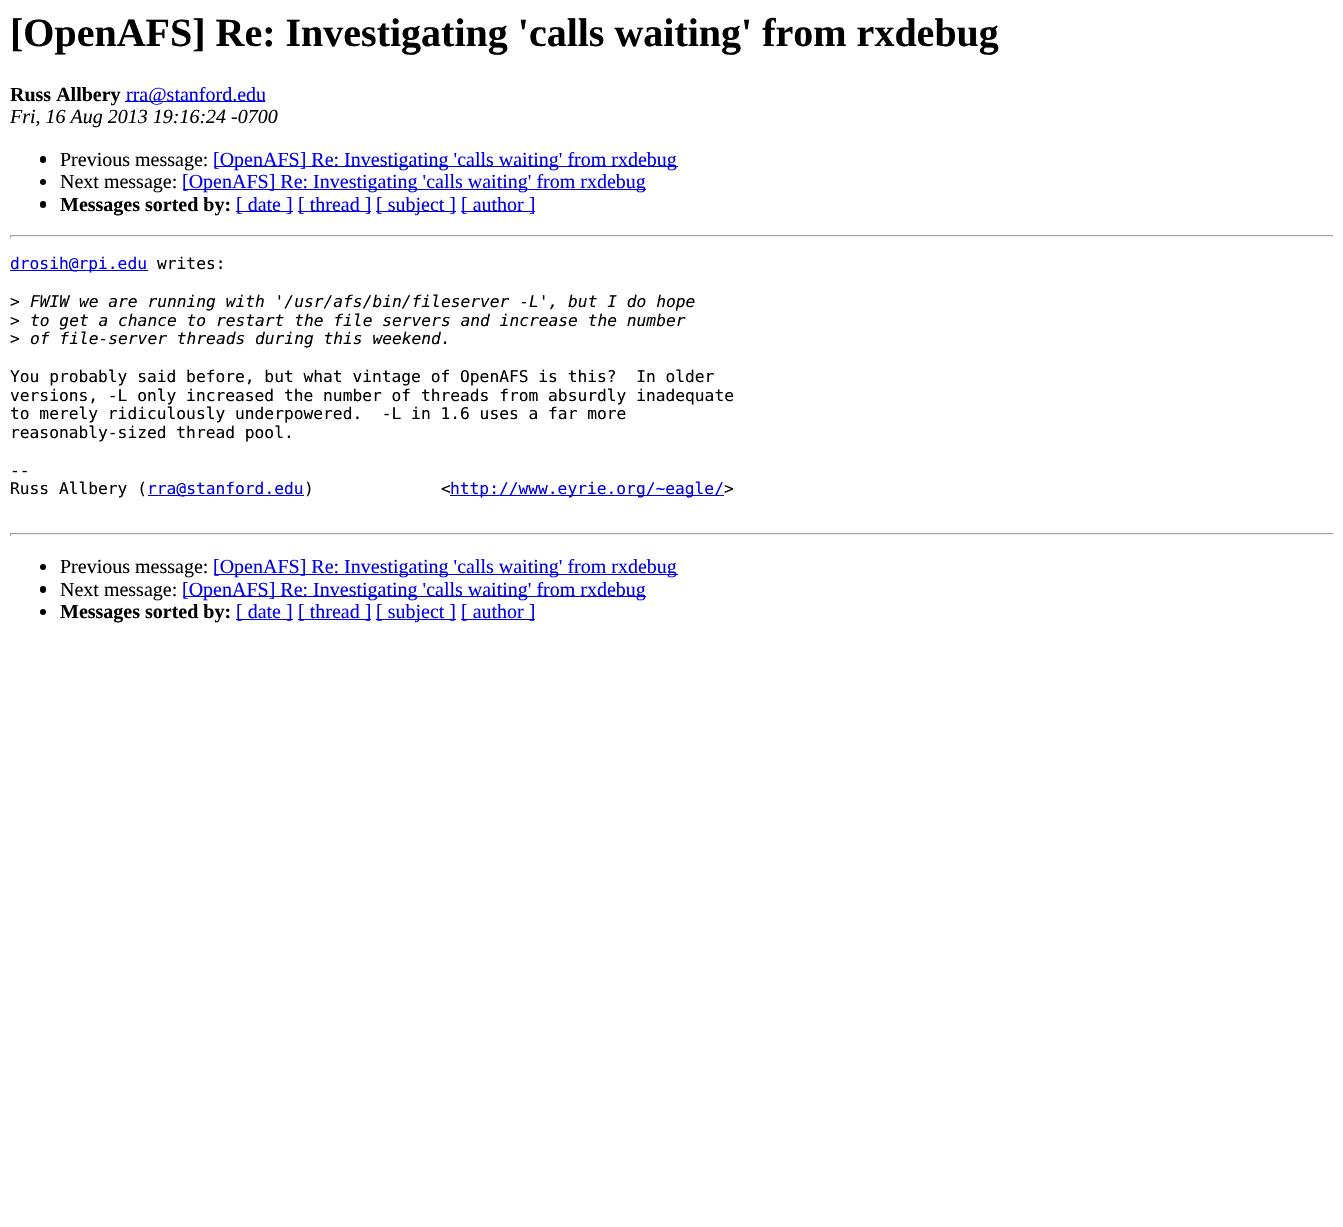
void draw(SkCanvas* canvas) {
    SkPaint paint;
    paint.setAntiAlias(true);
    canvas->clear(0xFFFFFFFF);
    SkFont font1(fontMgr->matchFamilyStyle("Liberation Serif", SkFontStyle::Bold()), 40);
    font1.setSubpixel(true);
    paint.setColor(0xFF000000);
    canvas->drawString("[OpenAFS] Re: Investigating 'calls waiting' from rxdebug", 10, 46, font1, paint);
    SkFont font2(fontMgr->matchFamilyStyle("Liberation Serif", SkFontStyle::Bold()), 20);
    font2.setSubpixel(true);
    canvas->drawString("Russ Allbery", 10, 101, font2, paint);
    paint.setColor(0xFF0000EE);
    canvas->drawRect(SkRect::MakeXYWH(125, 101, 140, 1), paint);
    SkFont font3(fontMgr->matchFamilyStyle("Liberation Serif", SkFontStyle::Normal()), 20);
    font3.setSubpixel(true);
    canvas->drawString("rra@stanford.edu", 126, 101, font3, paint);
    SkFont font4(fontMgr->matchFamilyStyle("Liberation Serif", SkFontStyle::Italic()), 20);
    font4.setSubpixel(true);
    paint.setColor(0xFF000000);
    canvas->drawString("Fri, 16 Aug 2013 19:16:24 -0700", 10, 123, font4, paint);
    canvas->drawRoundRect(SkRect::MakeXYWH(40, 156, 6, 7), 3, 3, paint);
    canvas->drawString("Previous message:", 60, 166, font3, paint);
    paint.setColor(0xFF0000EE);
    canvas->drawRect(SkRect::MakeXYWH(214, 166, 464, 1), paint);
    canvas->drawString("[OpenAFS] Re: Investigating 'calls waiting' from rxdebug", 213, 166, font3, paint);
    paint.setColor(0xFF000000);
    canvas->drawCircle(43, 182, 3, paint);
    canvas->drawString("Next message:", 60, 188, font3, paint);
    paint.setColor(0xFF0000EE);
    canvas->drawRect(SkRect::MakeXYWH(183, 189, 463, 1), paint);
    canvas->drawString("[OpenAFS] Re: Investigating 'calls waiting' from rxdebug", 182, 188, font3, paint);
    paint.setColor(0xFF000000);
    canvas->drawRoundRect(SkRect::MakeXYWH(40, 201, 6, 7), 3, 3, paint);
    canvas->drawString("Messages sorted by:", 60, 211, font2, paint);
    paint.setColor(0xFF0000EE);
    canvas->drawRect(SkRect::MakeXYWH(236, 211, 57, 1), paint);
    canvas->drawString("[ date ]", 236, 211, font3, paint);
    canvas->drawRect(SkRect::MakeXYWH(298, 211, 73, 1), paint);
    canvas->drawString("[ thread ]", 298, 211, font3, paint);
    canvas->drawRect(SkRect::MakeXYWH(376, 211, 80, 1), paint);
    canvas->drawString("[ subject ]", 376, 211, font3, paint);
    canvas->drawRect(SkRect::MakeXYWH(461, 211, 74, 1), paint);
    canvas->drawString("[ author ]", 461, 211, font3, paint);
    paint.setColor(0xFF9F9F9F);
    canvas->drawRect(SkRect::MakeXYWH(10, 235, 1324, 1), paint);
    paint.setColor(0xFFEEEEEE);
    canvas->drawRect(SkRect::MakeXYWH(1333, 235, 1, 3), paint);
    canvas->drawRect(SkRect::MakeXYWH(10, 236, 1324, 1), paint);
    paint.setColor(0xFF9F9F9F);
    canvas->drawRect(SkRect::MakeXYWH(10, 235, 1, 3), paint);
    paint.setColor(0xFF0000EE);
    canvas->drawRect(SkRect::MakeXYWH(10, 270, 138, 1), paint);
    SkFont font5(fontMgr->matchFamilyStyle("DejaVu Sans Mono", SkFontStyle::Normal()), 16.25f);
    font5.setSubpixel(true);
    canvas->drawString("drosih@rpi.edu", 10, 269, font5, paint);
    paint.setColor(0xFF000000);
    canvas->drawString("writes:", 157, 269, font5, paint);
    canvas->drawString(">", 10, 307, font5, paint);
    SkFont font6(fontMgr->matchFamilyStyle("DejaVu Sans Mono", SkFontStyle::Italic()), 16.25f);
    font6.setSubpixel(true);
    canvas->drawString("FWIW we are running with '/usr/afs/bin/fileserver -L', but I do hope", 30, 307, font6, paint);
    canvas->drawString(">", 10, 326, font5, paint);
    canvas->drawString("to get a chance to restart the file servers and increase the number", 30, 326, font6, paint);
    canvas->drawString(">", 10, 344, font5, paint);
    canvas->drawString("of file-server threads during this weekend.", 30, 344, font6, paint);
    canvas->drawString("You probably said before, but what vintage of OpenAFS is this?  In older", 10, 382, font5, paint);
    canvas->drawString("versions, -L only increased the number of threads from absurdly inadequate", 10, 401, font5, paint);
    canvas->drawString("to merely ridiculously underpowered.  -L in 1.6 uses a far more", 10, 419, font5, paint);
    canvas->drawString("reasonably-sized thread pool.", 10, 438, font5, paint);
    canvas->drawString("--", 10, 476, font5, paint);
    canvas->drawString("Russ Allbery (", 10, 494, font5, paint);
    paint.setColor(0xFF0000EE);
    canvas->drawRect(SkRect::MakeXYWH(148, 495, 156, 1), paint);
    canvas->drawString("rra@stanford.edu", 147, 494, font5, paint);
    paint.setColor(0xFF000000);
    canvas->drawString(")             <", 304, 494, font5, paint);
    paint.setColor(0xFF0000EE);
    canvas->drawRect(SkRect::MakeXYWH(450, 495, 274, 1), paint);
    canvas->drawString("http://www.eyrie.org/~eagle/", 450, 494, font5, paint);
    paint.setColor(0xFF000000);
    canvas->drawString(">", 724, 494, font5, paint);
    paint.setColor(0xFF9F9F9F);
    canvas->drawRect(SkRect::MakeXYWH(10, 533, 1324, 1), paint);
    paint.setColor(0xFFEEEEEE);
    canvas->drawRect(SkRect::MakeXYWH(1333, 533, 1, 3), paint);
    canvas->drawRect(SkRect::MakeXYWH(10, 534, 1324, 1), paint);
    paint.setColor(0xFF9F9F9F);
    canvas->drawRect(SkRect::MakeXYWH(10, 533, 1, 3), paint);
    paint.setColor(0xFF000000);
    canvas->drawCircle(43, 567, 3, paint);
    canvas->drawString("Previous message:", 60, 573, font3, paint);
    paint.setColor(0xFF0000EE);
    canvas->drawRect(SkRect::MakeXYWH(214, 574, 464, 1), paint);
    canvas->drawString("[OpenAFS] Re: Investigating 'calls waiting' from rxdebug", 213, 573, font3, paint);
    paint.setColor(0xFF000000);
    canvas->drawRoundRect(SkRect::MakeXYWH(40, 586, 6, 7), 3, 3, paint);
    canvas->drawString("Next message:", 60, 596, font3, paint);
    paint.setColor(0xFF0000EE);
    canvas->drawRect(SkRect::MakeXYWH(183, 596, 463, 1), paint);
    canvas->drawString("[OpenAFS] Re: Investigating 'calls waiting' from rxdebug", 182, 596, font3, paint);
    paint.setColor(0xFF000000);
    canvas->drawCircle(43, 612, 3, paint);
    canvas->drawString("Messages sorted by:", 60, 618, font2, paint);
    paint.setColor(0xFF0000EE);
    canvas->drawRect(SkRect::MakeXYWH(236, 619, 57, 1), paint);
    canvas->drawString("[ date ]", 236, 618, font3, paint);
    canvas->drawRect(SkRect::MakeXYWH(298, 619, 73, 1), paint);
    canvas->drawString("[ thread ]", 298, 618, font3, paint);
    canvas->drawRect(SkRect::MakeXYWH(376, 619, 80, 1), paint);
    canvas->drawString("[ subject ]", 376, 618, font3, paint);
    canvas->drawRect(SkRect::MakeXYWH(461, 619, 74, 1), paint);
    canvas->drawString("[ author ]", 461, 618, font3, paint);
}
